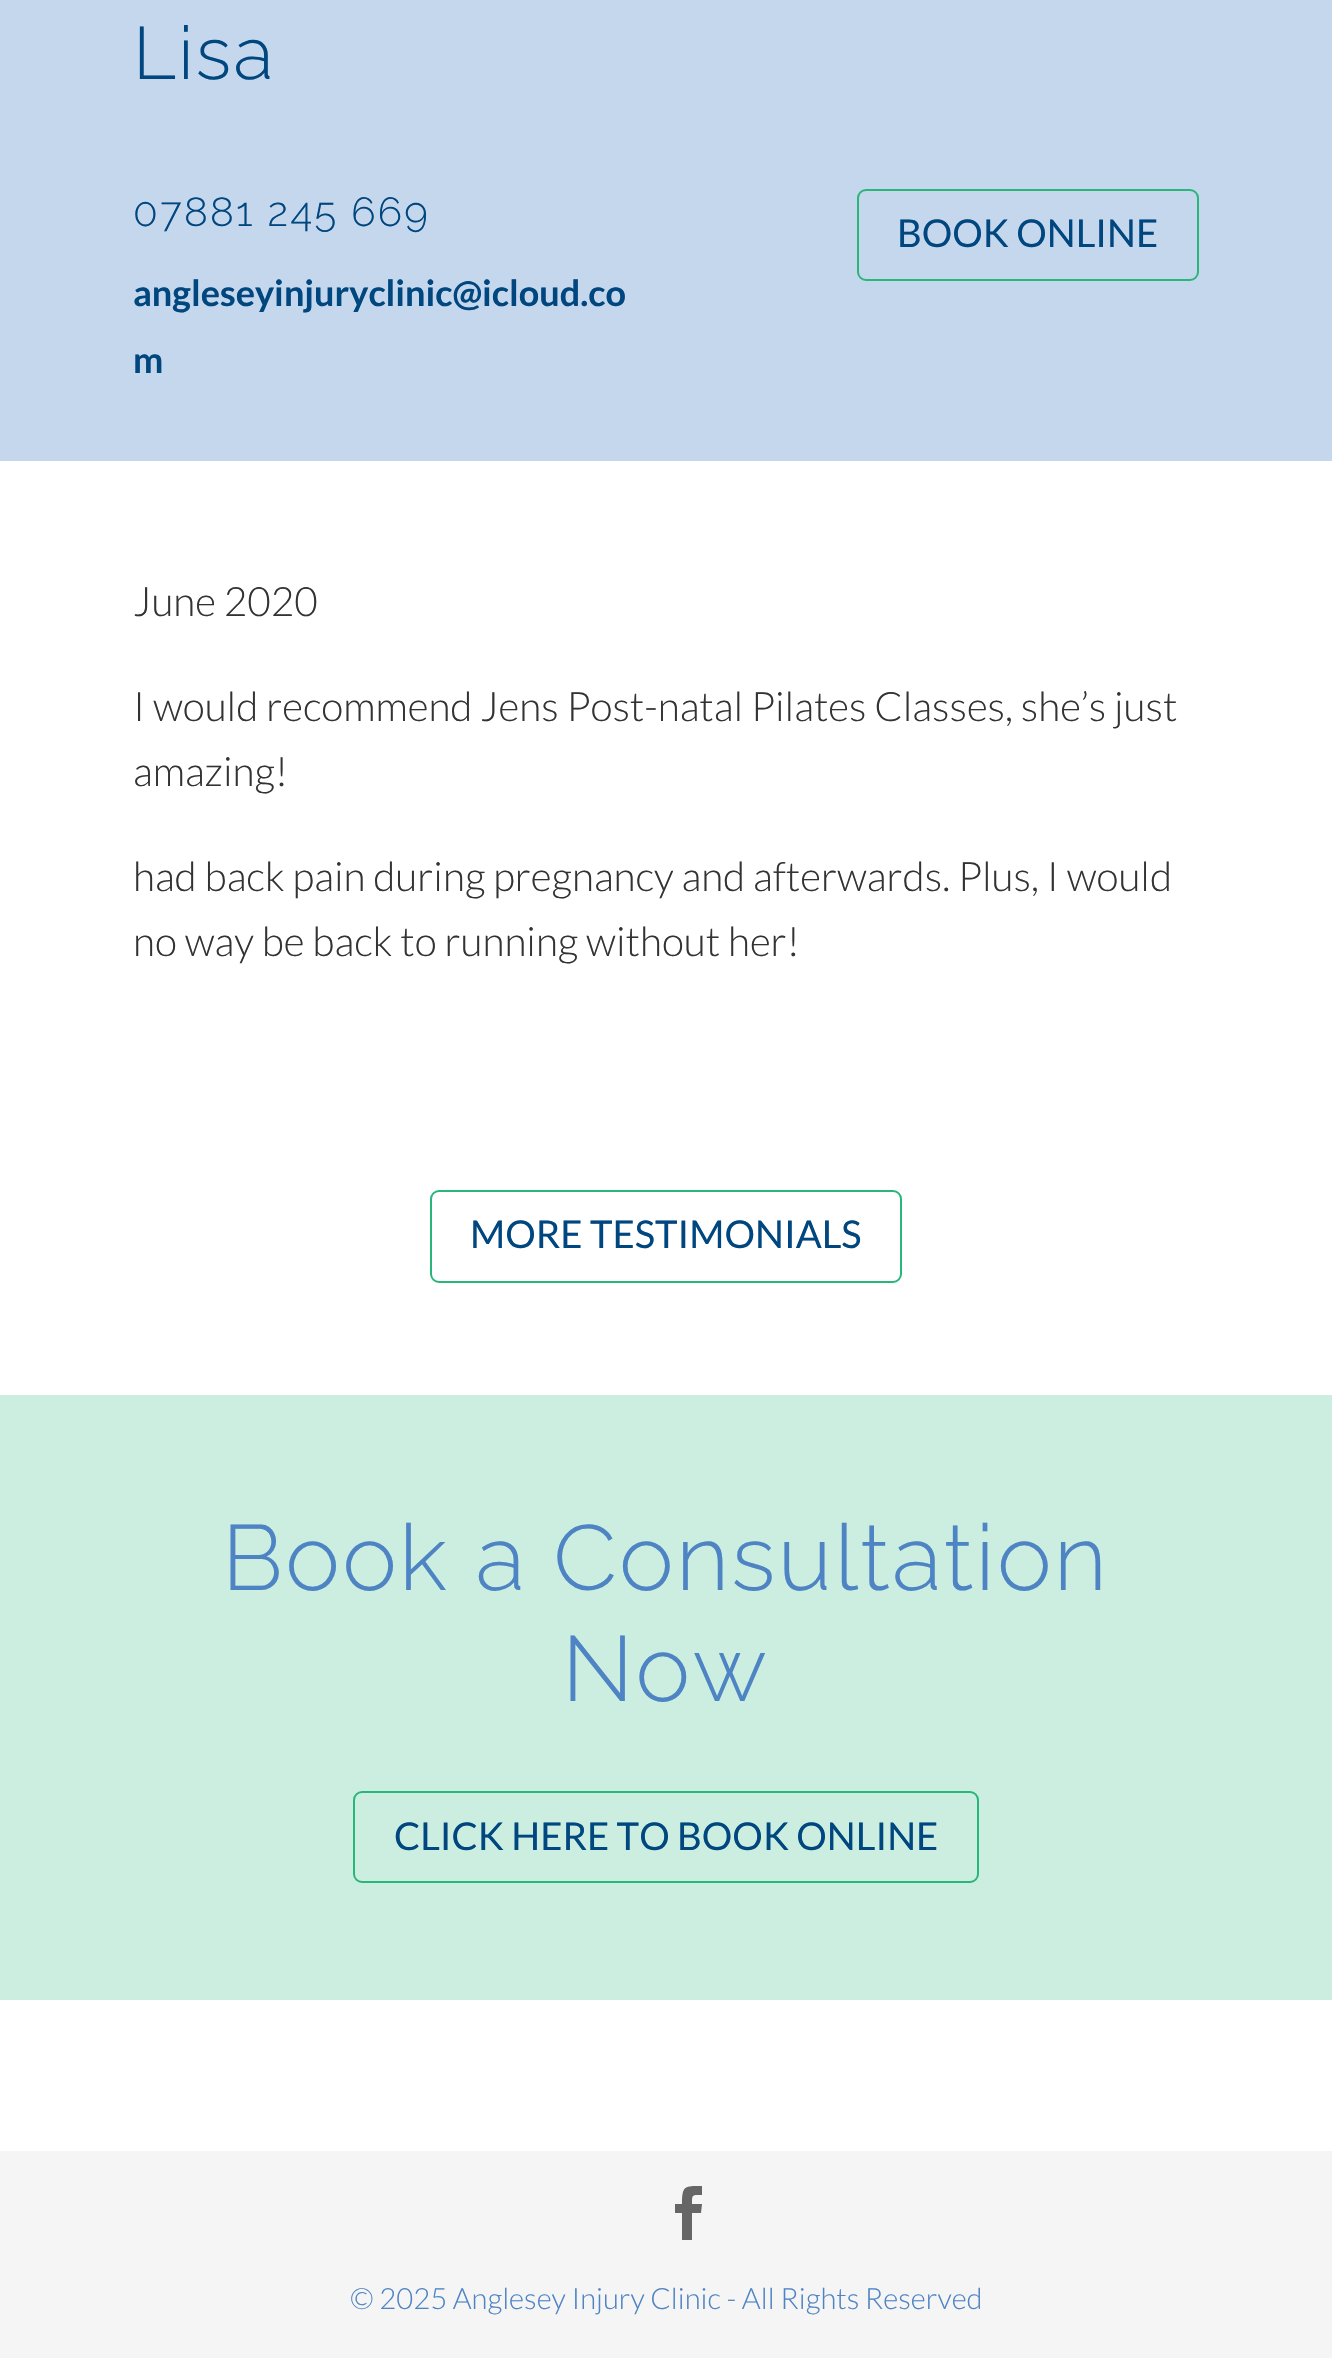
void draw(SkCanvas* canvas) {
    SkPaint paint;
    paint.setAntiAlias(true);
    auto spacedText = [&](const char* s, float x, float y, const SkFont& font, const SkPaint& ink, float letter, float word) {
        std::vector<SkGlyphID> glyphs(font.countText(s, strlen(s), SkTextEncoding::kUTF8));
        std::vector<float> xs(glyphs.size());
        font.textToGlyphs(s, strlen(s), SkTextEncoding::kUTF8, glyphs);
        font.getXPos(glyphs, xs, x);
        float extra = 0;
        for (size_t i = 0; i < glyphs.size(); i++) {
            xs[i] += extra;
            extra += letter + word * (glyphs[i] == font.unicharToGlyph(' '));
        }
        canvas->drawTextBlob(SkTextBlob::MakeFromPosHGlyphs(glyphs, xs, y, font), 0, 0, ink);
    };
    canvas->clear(0xFFFFFFFF);
    paint.setColor(0xFFC5D7EC);
    canvas->drawRect(SkRect::MakeXYWH(0, 0, 1332, 461), paint);
    SkFont font1(fontMgr->matchFamilyStyle("Raleway", SkFontStyle(300, SkFontStyle::kNormal_Width, SkFontStyle::kUpright_Slant)), 74);
    font1.setSubpixel(true);
    paint.setColor(0xFF00467F);
    spacedText("Lisa", 133, 79, font1, paint, 2.25f, 0);
    SkFont font2(fontMgr->matchFamilyStyle("Raleway", SkFontStyle(300, SkFontStyle::kNormal_Width, SkFontStyle::kUpright_Slant)), 40.5f);
    font2.setSubpixel(true);
    spacedText("07881 245 669", 133, 226, font2, paint, 2.25f, 0);
    SkFont font3(fontMgr->matchFamilyStyle("Lato", SkFontStyle::Bold()), 36);
    font3.setSubpixel(true);
    canvas->drawString("angleseyinjuryclinic@icloud.co", 133, 306, font3, paint);
    canvas->drawString("m", 133, 373, font3, paint);
    paint.setStyle(SkPaint::kStroke_Style);
    paint.setStrokeWidth(2);
    paint.setColor(0xFF28B67B);
    canvas->drawRoundRect(SkRect::MakeXYWH(858, 190, 340, 90), 8, 8, paint);
    SkFont font4(fontMgr->matchFamilyStyle("Lato", SkFontStyle::Normal()), 38.25f);
    font4.setSubpixel(true);
    paint.setStyle(SkPaint::kFill_Style);
    paint.setColor(0xFF00467F);
    canvas->drawString("BOOK ONLINE", 897, 247, font4, paint);
    SkFont font5(fontMgr->matchFamilyStyle("Lato", SkFontStyle(300, SkFontStyle::kNormal_Width, SkFontStyle::kUpright_Slant)), 40.5f);
    font5.setSubpixel(true);
    paint.setColor(0xFF333333);
    canvas->drawString("June 2020", 133, 616, font5, paint);
    canvas->drawString("I would recommend Jens Post-natal Pilates Classes, she’s just", 133, 721, font5, paint);
    canvas->drawString("amazing!", 133, 786, font5, paint);
    canvas->drawString("had back pain during pregnancy and afterwards. Plus, I would", 133, 891, font5, paint);
    canvas->drawString("no way be back to running without her!", 133, 956, font5, paint);
    paint.setStyle(SkPaint::kStroke_Style);
    paint.setColor(0xFF28B67B);
    canvas->drawRoundRect(SkRect::MakeXYWH(431, 1191, 470, 91), 8, 8, paint);
    paint.setStyle(SkPaint::kFill_Style);
    paint.setColor(0xFF00467F);
    canvas->drawString("MORE TESTIMONIALS", 470, 1248, font4, paint);
    paint.setColor(0xFFCCEEE0);
    canvas->drawRect(SkRect::MakeXYWH(0, 1395, 1332, 605), paint);
    SkFont font6(fontMgr->matchFamilyStyle("Raleway", SkFontStyle(300, SkFontStyle::kNormal_Width, SkFontStyle::kUpright_Slant)), 92.25f);
    font6.setSubpixel(true);
    paint.setColor(0xFF4E84C4);
    spacedText("Book a Consultation", 222, 1590, font6, paint, 2.25f, 0);
    spacedText("Now", 562, 1701, font6, paint, 2.25f, 0);
    paint.setStyle(SkPaint::kStroke_Style);
    paint.setColor(0xFF28B67B);
    canvas->drawRoundRect(SkRect::MakeXYWH(354, 1792, 624, 90), 8, 8, paint);
    paint.setStyle(SkPaint::kFill_Style);
    paint.setColor(0xFF00467F);
    canvas->drawString("CLICK HERE TO BOOK ONLINE", 394, 1850, font4, paint);
    paint.setColor(0xFFF5F5F5);
    canvas->drawRect(SkRect::MakeXYWH(0, 2151, 1332, 207), paint);
    paint.setColor(0xFF666666);
    canvas->drawPath(SkPathBuilder().moveTo(682, 2240).lineTo(692, 2240).lineTo(692, 2213).lineTo(701, 2213).lineTo(702, 2204).lineTo(692, 2204).cubicTo(692, 2194, 692, 2195, 702, 2195).lineTo(702, 2186).cubicTo(685, 2186, 682, 2185, 682, 2204).lineTo(675, 2204).lineTo(675, 2213).lineTo(682, 2213).close().detach(), paint);
    SkFont font7(fontMgr->matchFamilyStyle("Lato", SkFontStyle(300, SkFontStyle::kNormal_Width, SkFontStyle::kUpright_Slant)), 29.25f);
    font7.setSubpixel(true);
    paint.setColor(0xFF4E84C4);
    canvas->drawString("© 2025 Anglesey Injury Clinic - All Rights Reserved", 350, 2309, font7, paint);
}
